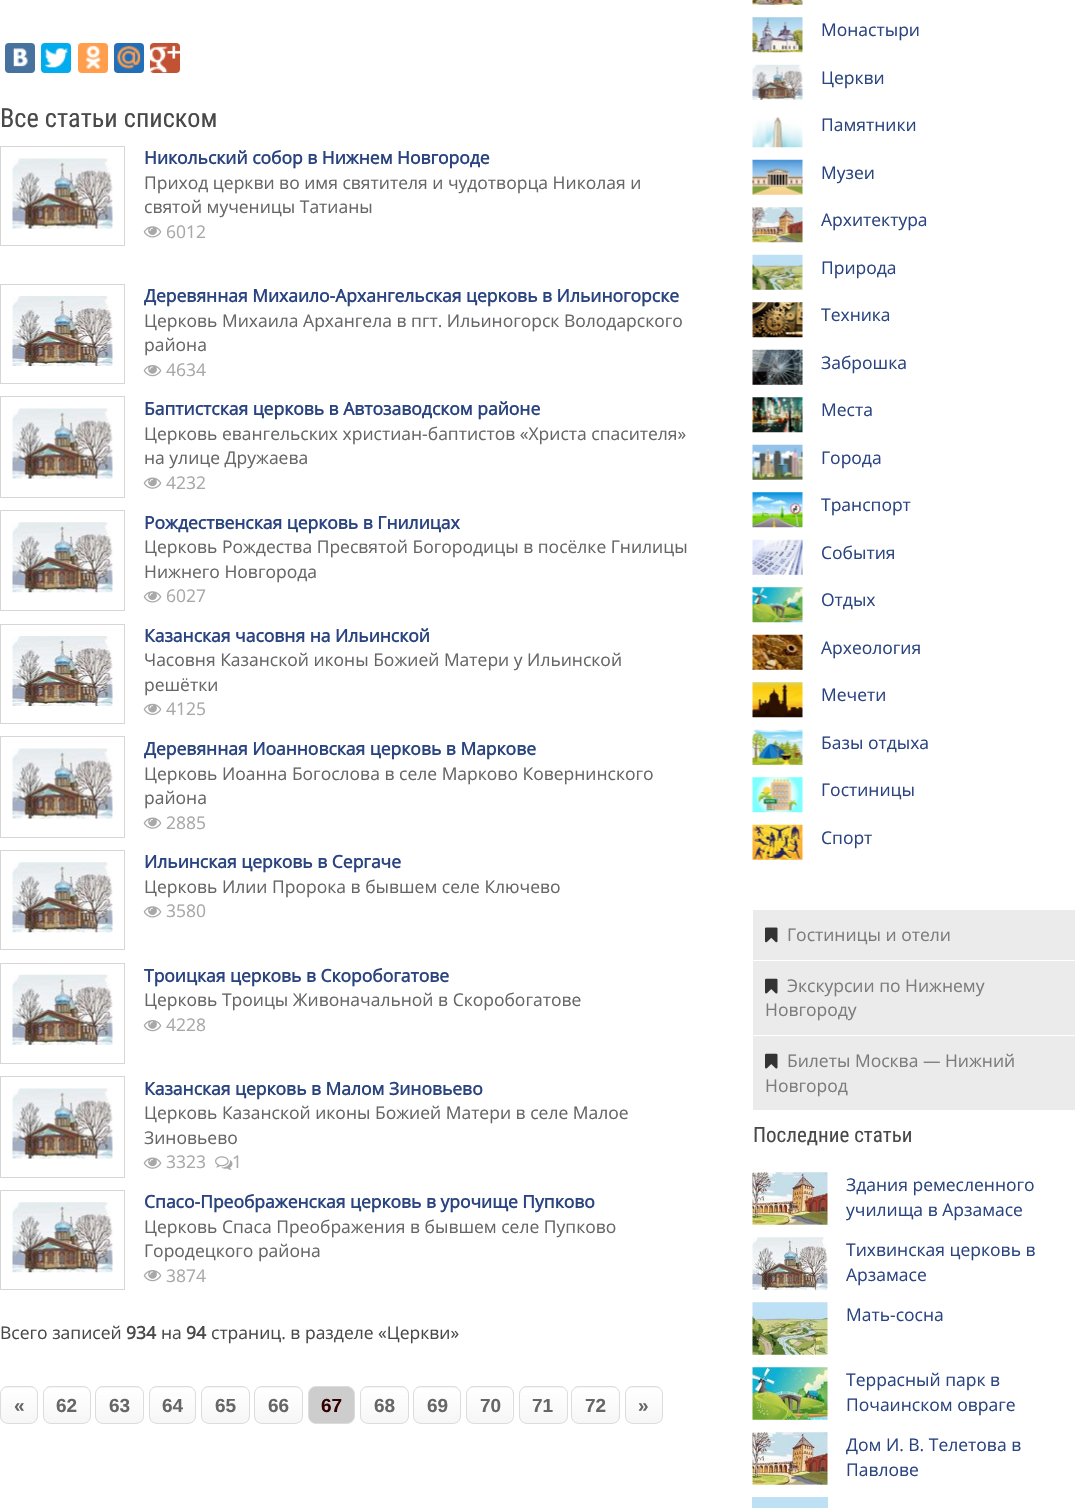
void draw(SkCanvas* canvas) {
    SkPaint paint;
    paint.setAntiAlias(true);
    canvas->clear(0xFFFFFFFF);
    paint.setColor(0xFF48729E);
    canvas->drawRoundRect(SkRect::MakeXYWH(5, 43, 30, 30), 4, 4, paint);
    canvas->drawImageRect(SkImages::DeferredFromEncodedData(SkData::MakeFromFileName("img1.png")), SkRect::MakeXYWH(13, 48, 15, 19), SkSamplingOptions());
    paint.setColor(0xFF00ACED);
    canvas->drawRoundRect(SkRect::MakeXYWH(41, 43, 30, 30), 4, 4, paint);
    canvas->drawImageRect(SkImages::DeferredFromEncodedData(SkData::MakeFromFileName("img2.png")), SkRect::MakeXYWH(44, 48, 24, 20), SkSamplingOptions());
    paint.setColor(0xFFFF9F4D);
    canvas->drawRoundRect(SkRect::MakeXYWH(78, 43, 30, 30), 4, 4, paint);
    canvas->drawImageRect(SkImages::DeferredFromEncodedData(SkData::MakeFromFileName("img3.png")), SkRect::MakeXYWH(86, 45, 15, 24), SkSamplingOptions());
    paint.setColor(0xFF226EB7);
    canvas->drawRoundRect(SkRect::MakeXYWH(114, 43, 30, 30), 4, 4, paint);
    canvas->drawImageRect(SkImages::DeferredFromEncodedData(SkData::MakeFromFileName("img4.png")), SkRect::MakeXYWH(117, 45, 24, 24), SkSamplingOptions());
    paint.setColor(0xFFC25234);
    canvas->drawRoundRect(SkRect::MakeXYWH(150, 43, 30, 30), 4, 4, paint);
    canvas->drawImageRect(SkImages::DeferredFromEncodedData(SkData::MakeFromFileName("img5.png")), SkRect::MakeXYWH(150, 45, 30, 28), SkSamplingOptions());
    SkFont font1(fontMgr->matchFamilyStyle("Roboto Condensed", SkFontStyle::Normal()), 26.25f);
    font1.setSubpixel(true);
    paint.setColor(0xFF494949);
    canvas->drawString("Все статьи списком", 0, 127, font1, paint);
    paint.setStyle(SkPaint::kStroke_Style);
    paint.setStrokeWidth(1);
    paint.setColor(0xFFD6D6D6);
    canvas->drawRect(SkRect::MakeXYWH(0.5f, 146.5f, 124, 99), paint);
    canvas->drawImageRect(SkImages::DeferredFromEncodedData(SkData::MakeFromFileName("img6.png")), SkRect::MakeXYWH(12, 158, 101, 71), SkSamplingOptions());
    SkFont font2(fontMgr->matchFamilyStyle("Open Sans", SkFontStyle::Bold()), 17.5f);
    font2.setSubpixel(true);
    paint.setStyle(SkPaint::kFill_Style);
    paint.setColor(0xFF2A4480);
    canvas->drawString("Никольский собор в Нижнем Новгороде", 144, 164, font2, paint);
    SkFont font3(fontMgr->matchFamilyStyle("Open Sans", SkFontStyle::Normal()), 17.5f);
    font3.setSubpixel(true);
    paint.setColor(0xFF666666);
    canvas->drawString("Приход церкви во имя святителя и чудотворца Николая и", 144, 189, font3, paint);
    canvas->drawString("святой мученицы Татианы", 144, 213, font3, paint);
    canvas->drawImageRect(SkImages::DeferredFromEncodedData(SkData::MakeFromFileName("img7.png")), SkRect::MakeXYWH(143, 226, 19, 12), SkSamplingOptions());
    paint.setColor(0xFFA8A8A8);
    canvas->drawString("6012", 166, 238, font3, paint);
    paint.setStyle(SkPaint::kStroke_Style);
    paint.setColor(0xFFD6D6D6);
    canvas->drawRect(SkRect::MakeXYWH(0.5f, 284.5f, 124, 99), paint);
    canvas->drawImageRect(SkImages::DeferredFromEncodedData(SkData::MakeFromFileName("img8.png")), SkRect::MakeXYWH(12, 296, 101, 70), SkSamplingOptions());
    paint.setStyle(SkPaint::kFill_Style);
    paint.setColor(0xFF2A4480);
    canvas->drawString("Деревянная Михаило-Архангельская церковь в Ильиногорске", 144, 302, font2, paint);
    paint.setColor(0xFF666666);
    canvas->drawString("Церковь Михаила Архангела в пгт. Ильиногорск Володарского", 144, 327, font3, paint);
    canvas->drawString("района", 144, 351, font3, paint);
    canvas->drawImageRect(SkImages::DeferredFromEncodedData(SkData::MakeFromFileName("img9.png")), SkRect::MakeXYWH(143, 365, 19, 12), SkSamplingOptions());
    paint.setColor(0xFFA8A8A8);
    canvas->drawString("4634", 166, 376, font3, paint);
    paint.setStyle(SkPaint::kStroke_Style);
    paint.setColor(0xFFD6D6D6);
    canvas->drawRect(SkRect::MakeXYWH(0.5f, 396.5f, 124, 101), paint);
    canvas->drawImageRect(SkImages::DeferredFromEncodedData(SkData::MakeFromFileName("img6.png")), SkRect::MakeXYWH(12, 408, 101, 71), SkSamplingOptions());
    paint.setStyle(SkPaint::kFill_Style);
    paint.setColor(0xFF2A4480);
    canvas->drawString("Баптистская церковь в Автозаводском районе", 144, 415, font2, paint);
    paint.setColor(0xFF666666);
    canvas->drawString("Церковь евангельских христиан-баптистов «Христа спасителя»", 144, 440, font3, paint);
    canvas->drawString("на улице Дружаева", 144, 464, font3, paint);
    canvas->drawImageRect(SkImages::DeferredFromEncodedData(SkData::MakeFromFileName("img10.png")), SkRect::MakeXYWH(143, 477, 19, 12), SkSamplingOptions());
    paint.setColor(0xFFA8A8A8);
    canvas->drawString("4232", 166, 489, font3, paint);
    paint.setStyle(SkPaint::kStroke_Style);
    paint.setColor(0xFFD6D6D6);
    canvas->drawRect(SkRect::MakeXYWH(0.5f, 510.5f, 124, 100), paint);
    canvas->drawImageRect(SkImages::DeferredFromEncodedData(SkData::MakeFromFileName("img11.png")), SkRect::MakeXYWH(12, 522, 101, 71), SkSamplingOptions());
    paint.setStyle(SkPaint::kFill_Style);
    paint.setColor(0xFF2A4480);
    canvas->drawString("Рождественская церковь в Гнилицах", 144, 529, font2, paint);
    paint.setColor(0xFF666666);
    canvas->drawString("Церковь Рождества Пресвятой Богородицы в посёлке Гнилицы", 144, 553, font3, paint);
    canvas->drawString("Нижнего Новгорода", 144, 578, font3, paint);
    canvas->drawImageRect(SkImages::DeferredFromEncodedData(SkData::MakeFromFileName("img7.png")), SkRect::MakeXYWH(143, 591, 19, 12), SkSamplingOptions());
    paint.setColor(0xFFA8A8A8);
    canvas->drawString("6027", 166, 602, font3, paint);
    paint.setStyle(SkPaint::kStroke_Style);
    paint.setColor(0xFFD6D6D6);
    canvas->drawRect(SkRect::MakeXYWH(0.5f, 624.5f, 124, 99), paint);
    canvas->drawImageRect(SkImages::DeferredFromEncodedData(SkData::MakeFromFileName("img8.png")), SkRect::MakeXYWH(12, 636, 101, 70), SkSamplingOptions());
    paint.setStyle(SkPaint::kFill_Style);
    paint.setColor(0xFF2A4480);
    canvas->drawString("Казанская часовня на Ильинской", 144, 642, font2, paint);
    paint.setColor(0xFF666666);
    canvas->drawString("Часовня Казанской иконы Божией Матери у Ильинской", 144, 666, font3, paint);
    canvas->drawString("решётки", 144, 691, font3, paint);
    canvas->drawImageRect(SkImages::DeferredFromEncodedData(SkData::MakeFromFileName("img12.png")), SkRect::MakeXYWH(143, 703, 19, 12), SkSamplingOptions());
    paint.setColor(0xFFA8A8A8);
    canvas->drawString("4125", 166, 715, font3, paint);
    paint.setStyle(SkPaint::kStroke_Style);
    paint.setColor(0xFFD6D6D6);
    canvas->drawRect(SkRect::MakeXYWH(0.5f, 736.5f, 124, 101), paint);
    canvas->drawImageRect(SkImages::DeferredFromEncodedData(SkData::MakeFromFileName("img6.png")), SkRect::MakeXYWH(12, 748, 101, 71), SkSamplingOptions());
    paint.setStyle(SkPaint::kFill_Style);
    paint.setColor(0xFF2A4480);
    canvas->drawString("Деревянная Иоанновская церковь в Маркове", 144, 755, font2, paint);
    paint.setColor(0xFF666666);
    canvas->drawString("Церковь Иоанна Богослова в селе Марково Ковернинского", 144, 780, font3, paint);
    canvas->drawString("района", 144, 804, font3, paint);
    canvas->drawImageRect(SkImages::DeferredFromEncodedData(SkData::MakeFromFileName("img10.png")), SkRect::MakeXYWH(143, 817, 19, 12), SkSamplingOptions());
    paint.setColor(0xFFA8A8A8);
    canvas->drawString("2885", 166, 829, font3, paint);
    paint.setStyle(SkPaint::kStroke_Style);
    paint.setColor(0xFFD6D6D6);
    canvas->drawRect(SkRect::MakeXYWH(0.5f, 850.5f, 124, 99), paint);
    canvas->drawImageRect(SkImages::DeferredFromEncodedData(SkData::MakeFromFileName("img11.png")), SkRect::MakeXYWH(12, 862, 101, 71), SkSamplingOptions());
    paint.setStyle(SkPaint::kFill_Style);
    paint.setColor(0xFF2A4480);
    canvas->drawString("Ильинская церковь в Сергаче", 144, 868, font2, paint);
    paint.setColor(0xFF666666);
    canvas->drawString("Церковь Илии Пророка в бывшем селе Ключево", 144, 893, font3, paint);
    canvas->drawImageRect(SkImages::DeferredFromEncodedData(SkData::MakeFromFileName("img7.png")), SkRect::MakeXYWH(143, 906, 19, 12), SkSamplingOptions());
    paint.setColor(0xFFA8A8A8);
    canvas->drawString("3580", 166, 917, font3, paint);
    paint.setStyle(SkPaint::kStroke_Style);
    paint.setColor(0xFFD6D6D6);
    canvas->drawRect(SkRect::MakeXYWH(0.5f, 963.5f, 124, 100), paint);
    canvas->drawImageRect(SkImages::DeferredFromEncodedData(SkData::MakeFromFileName("img13.png")), SkRect::MakeXYWH(12, 974, 101, 71), SkSamplingOptions());
    paint.setStyle(SkPaint::kFill_Style);
    paint.setColor(0xFF2A4480);
    canvas->drawString("Троицкая церковь в Скоробогатове", 144, 982, font2, paint);
    paint.setColor(0xFF666666);
    canvas->drawString("Церковь Троицы Живоначальной в Скоробогатове", 144, 1006, font3, paint);
    canvas->drawImageRect(SkImages::DeferredFromEncodedData(SkData::MakeFromFileName("img9.png")), SkRect::MakeXYWH(143, 1020, 19, 12), SkSamplingOptions());
    paint.setColor(0xFFA8A8A8);
    canvas->drawString("4228", 166, 1031, font3, paint);
    paint.setStyle(SkPaint::kStroke_Style);
    paint.setColor(0xFFD6D6D6);
    canvas->drawRect(SkRect::MakeXYWH(0.5f, 1076.5f, 124, 101), paint);
    canvas->drawImageRect(SkImages::DeferredFromEncodedData(SkData::MakeFromFileName("img6.png")), SkRect::MakeXYWH(12, 1088, 101, 71), SkSamplingOptions());
    paint.setStyle(SkPaint::kFill_Style);
    paint.setColor(0xFF2A4480);
    canvas->drawString("Казанская церковь в Малом Зиновьево", 144, 1095, font2, paint);
    paint.setColor(0xFF666666);
    canvas->drawString("Церковь Казанской иконы Божией Матери в селе Малое", 144, 1119, font3, paint);
    canvas->drawString("Зиновьево", 144, 1144, font3, paint);
    canvas->drawImageRect(SkImages::DeferredFromEncodedData(SkData::MakeFromFileName("img10.png")), SkRect::MakeXYWH(143, 1157, 19, 12), SkSamplingOptions());
    paint.setColor(0xFFA8A8A8);
    canvas->drawString("3323", 166, 1168, font3, paint);
    canvas->drawImageRect(SkImages::DeferredFromEncodedData(SkData::MakeFromFileName("img14.png")), SkRect::MakeXYWH(215, 1156, 18, 14), SkSamplingOptions());
    canvas->drawString("1", 232, 1168, font3, paint);
    paint.setStyle(SkPaint::kStroke_Style);
    paint.setColor(0xFFD6D6D6);
    canvas->drawRect(SkRect::MakeXYWH(0.5f, 1190.5f, 124, 99), paint);
    canvas->drawImageRect(SkImages::DeferredFromEncodedData(SkData::MakeFromFileName("img11.png")), SkRect::MakeXYWH(12, 1202, 101, 71), SkSamplingOptions());
    paint.setStyle(SkPaint::kFill_Style);
    paint.setColor(0xFF2A4480);
    canvas->drawString("Спасо-Преображенская церковь в урочище Пупково", 144, 1208, font2, paint);
    paint.setColor(0xFF666666);
    canvas->drawString("Церковь Спаса Преображения в бывшем селе Пупково", 144, 1233, font3, paint);
    canvas->drawString("Городецкого района", 144, 1257, font3, paint);
    canvas->drawImageRect(SkImages::DeferredFromEncodedData(SkData::MakeFromFileName("img9.png")), SkRect::MakeXYWH(143, 1270, 19, 12), SkSamplingOptions());
    paint.setColor(0xFFA8A8A8);
    canvas->drawString("3874", 166, 1282, font3, paint);
    paint.setColor(0xFF494949);
    canvas->drawString("Всего записей", 0, 1339, font3, paint);
    canvas->drawString("934", 126, 1339, font2, paint);
    canvas->drawString("на", 161, 1339, font3, paint);
    canvas->drawString("94", 186, 1339, font2, paint);
    canvas->drawString("страниц. в разделе «Церкви»", 211, 1339, font3, paint);
    canvas->save();
    canvas->clipPath(SkPathBuilder().moveTo(8, 1386).lineTo(30, 1386).cubicTo(34.5f, 1386, 38, 1389.5f, 38, 1394).lineTo(38, 1416).cubicTo(38, 1420.5f, 34.5f, 1424, 30, 1424).lineTo(8, 1424).cubicTo(3.5f, 1424, 0, 1420.5f, 0, 1416).lineTo(0, 1394).cubicTo(0, 1389.5f, 3.5f, 1386, 8, 1386).close().detach(), true);
    {
        const SkColor colors[] = {0xFFFFFFFF, 0xFFF6F6F6};
        const float stops[] = {0.05f, 1};
        const SkPoint ends[] = {{19, 1353}, {19, 1388}};
        paint.setShader(SkGradientShader::MakeLinear(ends, colors, stops, 2, SkTileMode::kClamp));
        paint.setAlpha(255);
    }
    canvas->drawRect(SkRect::MakeXYWH(0, 1386, 38, 2), paint);
    {
        const SkColor colors[] = {0xFFFFFFFF, 0xFFF6F6F6};
        const float stops[] = {0.05f, 1};
        const SkPoint ends[] = {{19, 1388}, {19, 1423}};
        paint.setShader(SkGradientShader::MakeLinear(ends, colors, stops, 2, SkTileMode::kClamp));
        paint.setAlpha(255);
    }
    canvas->drawRect(SkRect::MakeXYWH(0, 1388, 38, 35), paint);
    canvas->restore();
    paint.setStyle(SkPaint::kStroke_Style);
    paint.setShader(nullptr);
    paint.setColor(0xFFDCDCDC);
    canvas->drawRoundRect(SkRect::MakeXYWH(0.5f, 1386.5f, 37, 37), 7.5f, 7.5f, paint);
    SkFont font4(fontMgr->matchFamilyStyle("Liberation Sans", SkFontStyle::Bold()), 19);
    font4.setSubpixel(true);
    paint.setStyle(SkPaint::kFill_Style);
    paint.setColor(0xFF666666);
    canvas->drawString("«", 14, 1412, font4, paint);
    canvas->save();
    canvas->clipPath(SkPathBuilder().moveTo(51, 1386).lineTo(83, 1386).cubicTo(87.5f, 1386, 91, 1389.5f, 91, 1394).lineTo(91, 1416).cubicTo(91, 1420.5f, 87.5f, 1424, 83, 1424).lineTo(51, 1424).cubicTo(46.5f, 1424, 43, 1420.5f, 43, 1416).lineTo(43, 1394).cubicTo(43, 1389.5f, 46.5f, 1386, 51, 1386).close().detach(), true);
    {
        const SkColor colors[] = {0xFFFFFFFF, 0xFFF6F6F6};
        const float stops[] = {0.05f, 1};
        const SkPoint ends[] = {{67, 1353}, {67, 1388}};
        paint.setShader(SkGradientShader::MakeLinear(ends, colors, stops, 2, SkTileMode::kClamp));
        paint.setAlpha(255);
    }
    canvas->drawRect(SkRect::MakeXYWH(43, 1386, 48, 2), paint);
    {
        const SkColor colors[] = {0xFFFFFFFF, 0xFFF6F6F6};
        const float stops[] = {0.05f, 1};
        const SkPoint ends[] = {{67, 1388}, {67, 1423}};
        paint.setShader(SkGradientShader::MakeLinear(ends, colors, stops, 2, SkTileMode::kClamp));
        paint.setAlpha(255);
    }
    canvas->drawRect(SkRect::MakeXYWH(43, 1388, 48, 35), paint);
    canvas->restore();
    paint.setStyle(SkPaint::kStroke_Style);
    paint.setShader(nullptr);
    paint.setColor(0xFFDCDCDC);
    canvas->drawRoundRect(SkRect::MakeXYWH(43.5f, 1386.5f, 47, 37), 7.5f, 7.5f, paint);
    paint.setStyle(SkPaint::kFill_Style);
    paint.setColor(0xFF666666);
    canvas->drawString("62", 56, 1412, font4, paint);
    canvas->save();
    canvas->clipPath(SkPathBuilder().moveTo(103, 1386).lineTo(136, 1386).cubicTo(140.5f, 1386, 144, 1389.5f, 144, 1394).lineTo(144, 1416).cubicTo(144, 1420.5f, 140.5f, 1424, 136, 1424).lineTo(103, 1424).cubicTo(98.5f, 1424, 95, 1420.5f, 95, 1416).lineTo(95, 1394).cubicTo(95, 1389.5f, 98.5f, 1386, 103, 1386).close().detach(), true);
    {
        const SkColor colors[] = {0xFFFFFFFF, 0xFFF6F6F6};
        const float stops[] = {0.05f, 1};
        const SkPoint ends[] = {{119, 1353}, {119, 1388}};
        paint.setShader(SkGradientShader::MakeLinear(ends, colors, stops, 2, SkTileMode::kClamp));
        paint.setAlpha(255);
    }
    canvas->drawRect(SkRect::MakeXYWH(95, 1386, 49, 2), paint);
    {
        const SkColor colors[] = {0xFFFFFFFF, 0xFFF6F6F6};
        const float stops[] = {0.05f, 1};
        const SkPoint ends[] = {{119, 1388}, {119, 1423}};
        paint.setShader(SkGradientShader::MakeLinear(ends, colors, stops, 2, SkTileMode::kClamp));
        paint.setAlpha(255);
    }
    canvas->drawRect(SkRect::MakeXYWH(95, 1388, 49, 35), paint);
    canvas->restore();
    paint.setShader(nullptr);
    paint.setColor(0xFFFFFFFF);
    canvas->drawPath(SkPathBuilder().moveTo(102, 1389).lineTo(130, 1389).cubicTo(143, 1389, 142, 1391, 142, 1403).cubicTo(142, 1407, 143, 1418, 141, 1421).cubicTo(142, 1420, 143, 1419, 143, 1417).lineTo(143, 1394).cubicTo(143, 1391, 140, 1388, 137, 1388).lineTo(102, 1388).cubicTo(99, 1388, 96, 1391, 96, 1394).lineTo(96, 1395).cubicTo(96, 1392, 99, 1389, 102, 1389).close().detach(), paint);
    paint.setStyle(SkPaint::kStroke_Style);
    paint.setColor(0xFFDCDCDC);
    canvas->drawRoundRect(SkRect::MakeXYWH(95.5f, 1386.5f, 48, 37), 7.5f, 7.5f, paint);
    paint.setStyle(SkPaint::kFill_Style);
    paint.setColor(0xFF666666);
    canvas->drawString("63", 109, 1412, font4, paint);
    canvas->save();
    canvas->clipPath(SkPathBuilder().moveTo(157, 1386).lineTo(188, 1386).cubicTo(192.5f, 1386, 196, 1389.5f, 196, 1394).lineTo(196, 1416).cubicTo(196, 1420.5f, 192.5f, 1424, 188, 1424).lineTo(157, 1424).cubicTo(152.5f, 1424, 149, 1420.5f, 149, 1416).lineTo(149, 1394).cubicTo(149, 1389.5f, 152.5f, 1386, 157, 1386).close().detach(), true);
    {
        const SkColor colors[] = {0xFFFFFFFF, 0xFFF6F6F6};
        const float stops[] = {0.05f, 1};
        const SkPoint ends[] = {{173, 1353}, {173, 1388}};
        paint.setShader(SkGradientShader::MakeLinear(ends, colors, stops, 2, SkTileMode::kClamp));
        paint.setAlpha(255);
    }
    canvas->drawRect(SkRect::MakeXYWH(149, 1386, 47, 2), paint);
    {
        const SkColor colors[] = {0xFFFFFFFF, 0xFFF6F6F6};
        const float stops[] = {0.05f, 1};
        const SkPoint ends[] = {{173, 1388}, {173, 1423}};
        paint.setShader(SkGradientShader::MakeLinear(ends, colors, stops, 2, SkTileMode::kClamp));
        paint.setAlpha(255);
    }
    canvas->drawRect(SkRect::MakeXYWH(149, 1388, 47, 35), paint);
    canvas->restore();
    paint.setStyle(SkPaint::kStroke_Style);
    paint.setShader(nullptr);
    paint.setColor(0xFFDCDCDC);
    canvas->drawRoundRect(SkRect::MakeXYWH(149.5f, 1386.5f, 46, 37), 7.5f, 7.5f, paint);
    paint.setStyle(SkPaint::kFill_Style);
    paint.setColor(0xFF666666);
    canvas->drawString("64", 162, 1412, font4, paint);
    canvas->save();
    canvas->clipPath(SkPathBuilder().moveTo(209, 1386).lineTo(242, 1386).cubicTo(246.5f, 1386, 250, 1389.5f, 250, 1394).lineTo(250, 1416).cubicTo(250, 1420.5f, 246.5f, 1424, 242, 1424).lineTo(209, 1424).cubicTo(204.5f, 1424, 201, 1420.5f, 201, 1416).lineTo(201, 1394).cubicTo(201, 1389.5f, 204.5f, 1386, 209, 1386).close().detach(), true);
    {
        const SkColor colors[] = {0xFFFFFFFF, 0xFFF6F6F6};
        const float stops[] = {0.05f, 1};
        const SkPoint ends[] = {{226, 1353}, {226, 1388}};
        paint.setShader(SkGradientShader::MakeLinear(ends, colors, stops, 2, SkTileMode::kClamp));
        paint.setAlpha(255);
    }
    canvas->drawRect(SkRect::MakeXYWH(201, 1386, 49, 2), paint);
    {
        const SkColor colors[] = {0xFFFFFFFF, 0xFFF6F6F6};
        const float stops[] = {0.05f, 1};
        const SkPoint ends[] = {{226, 1388}, {226, 1423}};
        paint.setShader(SkGradientShader::MakeLinear(ends, colors, stops, 2, SkTileMode::kClamp));
        paint.setAlpha(255);
    }
    canvas->drawRect(SkRect::MakeXYWH(201, 1388, 49, 35), paint);
    canvas->restore();
    paint.setStyle(SkPaint::kStroke_Style);
    paint.setShader(nullptr);
    paint.setColor(0xFFDCDCDC);
    canvas->drawRoundRect(SkRect::MakeXYWH(201.5f, 1386.5f, 48, 37), 7.5f, 7.5f, paint);
    paint.setStyle(SkPaint::kFill_Style);
    paint.setColor(0xFF666666);
    canvas->drawString("65", 215, 1412, font4, paint);
    canvas->save();
    canvas->clipPath(SkPathBuilder().moveTo(262, 1386).lineTo(295, 1386).cubicTo(299.5f, 1386, 303, 1389.5f, 303, 1394).lineTo(303, 1416).cubicTo(303, 1420.5f, 299.5f, 1424, 295, 1424).lineTo(262, 1424).cubicTo(257.5f, 1424, 254, 1420.5f, 254, 1416).lineTo(254, 1394).cubicTo(254, 1389.5f, 257.5f, 1386, 262, 1386).close().detach(), true);
    {
        const SkColor colors[] = {0xFFFFFFFF, 0xFFF6F6F6};
        const float stops[] = {0.05f, 1};
        const SkPoint ends[] = {{278, 1353}, {278, 1388}};
        paint.setShader(SkGradientShader::MakeLinear(ends, colors, stops, 2, SkTileMode::kClamp));
        paint.setAlpha(255);
    }
    canvas->drawRect(SkRect::MakeXYWH(254, 1386, 49, 2), paint);
    {
        const SkColor colors[] = {0xFFFFFFFF, 0xFFF6F6F6};
        const float stops[] = {0.05f, 1};
        const SkPoint ends[] = {{278, 1388}, {278, 1423}};
        paint.setShader(SkGradientShader::MakeLinear(ends, colors, stops, 2, SkTileMode::kClamp));
        paint.setAlpha(255);
    }
    canvas->drawRect(SkRect::MakeXYWH(254, 1388, 49, 35), paint);
    canvas->restore();
    paint.setStyle(SkPaint::kStroke_Style);
    paint.setShader(nullptr);
    paint.setColor(0xFFDCDCDC);
    canvas->drawRoundRect(SkRect::MakeXYWH(254.5f, 1386.5f, 48, 37), 7.5f, 7.5f, paint);
    paint.setStyle(SkPaint::kFill_Style);
    paint.setColor(0xFF666666);
    canvas->drawString("66", 268, 1412, font4, paint);
    paint.setColor(0xFFCDCDCD);
    canvas->drawRoundRect(SkRect::MakeXYWH(308.5f, 1386.5f, 46, 37), 7.5f, 7.5f, paint);
    paint.setStyle(SkPaint::kStroke_Style);
    paint.setColor(0xFFDCDCDC);
    canvas->drawRoundRect(SkRect::MakeXYWH(308.5f, 1386.5f, 46, 37), 7.5f, 7.5f, paint);
    paint.setStyle(SkPaint::kFill_Style);
    paint.setColor(0xFF330000);
    canvas->drawString("67", 321, 1412, font4, paint);
    canvas->save();
    canvas->clipPath(SkPathBuilder().moveTo(368, 1386).lineTo(401, 1386).cubicTo(405.5f, 1386, 409, 1389.5f, 409, 1394).lineTo(409, 1416).cubicTo(409, 1420.5f, 405.5f, 1424, 401, 1424).lineTo(368, 1424).cubicTo(363.5f, 1424, 360, 1420.5f, 360, 1416).lineTo(360, 1394).cubicTo(360, 1389.5f, 363.5f, 1386, 368, 1386).close().detach(), true);
    {
        const SkColor colors[] = {0xFFFFFFFF, 0xFFF6F6F6};
        const float stops[] = {0.05f, 1};
        const SkPoint ends[] = {{384, 1353}, {384, 1388}};
        paint.setShader(SkGradientShader::MakeLinear(ends, colors, stops, 2, SkTileMode::kClamp));
        paint.setAlpha(255);
    }
    canvas->drawRect(SkRect::MakeXYWH(360, 1386, 49, 2), paint);
    {
        const SkColor colors[] = {0xFFFFFFFF, 0xFFF6F6F6};
        const float stops[] = {0.05f, 1};
        const SkPoint ends[] = {{384, 1388}, {384, 1423}};
        paint.setShader(SkGradientShader::MakeLinear(ends, colors, stops, 2, SkTileMode::kClamp));
        paint.setAlpha(255);
    }
    canvas->drawRect(SkRect::MakeXYWH(360, 1388, 49, 35), paint);
    canvas->restore();
    paint.setStyle(SkPaint::kStroke_Style);
    paint.setShader(nullptr);
    paint.setColor(0xFFDCDCDC);
    canvas->drawRoundRect(SkRect::MakeXYWH(360.5f, 1386.5f, 48, 37), 7.5f, 7.5f, paint);
    paint.setStyle(SkPaint::kFill_Style);
    paint.setColor(0xFF666666);
    canvas->drawString("68", 374, 1412, font4, paint);
    canvas->save();
    canvas->clipPath(SkPathBuilder().moveTo(421, 1386).lineTo(453, 1386).cubicTo(457.5f, 1386, 461, 1389.5f, 461, 1394).lineTo(461, 1416).cubicTo(461, 1420.5f, 457.5f, 1424, 453, 1424).lineTo(421, 1424).cubicTo(416.5f, 1424, 413, 1420.5f, 413, 1416).lineTo(413, 1394).cubicTo(413, 1389.5f, 416.5f, 1386, 421, 1386).close().detach(), true);
    {
        const SkColor colors[] = {0xFFFFFFFF, 0xFFF6F6F6};
        const float stops[] = {0.05f, 1};
        const SkPoint ends[] = {{437, 1353}, {437, 1388}};
        paint.setShader(SkGradientShader::MakeLinear(ends, colors, stops, 2, SkTileMode::kClamp));
        paint.setAlpha(255);
    }
    canvas->drawRect(SkRect::MakeXYWH(413, 1386, 48, 2), paint);
    {
        const SkColor colors[] = {0xFFFFFFFF, 0xFFF6F6F6};
        const float stops[] = {0.05f, 1};
        const SkPoint ends[] = {{437, 1388}, {437, 1423}};
        paint.setShader(SkGradientShader::MakeLinear(ends, colors, stops, 2, SkTileMode::kClamp));
        paint.setAlpha(255);
    }
    canvas->drawRect(SkRect::MakeXYWH(413, 1388, 48, 35), paint);
    canvas->restore();
    paint.setStyle(SkPaint::kStroke_Style);
    paint.setShader(nullptr);
    paint.setColor(0xFFDCDCDC);
    canvas->drawRoundRect(SkRect::MakeXYWH(413.5f, 1386.5f, 47, 37), 7.5f, 7.5f, paint);
    paint.setStyle(SkPaint::kFill_Style);
    paint.setColor(0xFF666666);
    canvas->drawString("69", 427, 1412, font4, paint);
    canvas->save();
    canvas->clipPath(SkPathBuilder().moveTo(474, 1386).lineTo(506, 1386).cubicTo(510.5f, 1386, 514, 1389.5f, 514, 1394).lineTo(514, 1416).cubicTo(514, 1420.5f, 510.5f, 1424, 506, 1424).lineTo(474, 1424).cubicTo(469.5f, 1424, 466, 1420.5f, 466, 1416).lineTo(466, 1394).cubicTo(466, 1389.5f, 469.5f, 1386, 474, 1386).close().detach(), true);
    {
        const SkColor colors[] = {0xFFFFFFFF, 0xFFF6F6F6};
        const float stops[] = {0.05f, 1};
        const SkPoint ends[] = {{490, 1353}, {490, 1388}};
        paint.setShader(SkGradientShader::MakeLinear(ends, colors, stops, 2, SkTileMode::kClamp));
        paint.setAlpha(255);
    }
    canvas->drawRect(SkRect::MakeXYWH(466, 1386, 48, 2), paint);
    {
        const SkColor colors[] = {0xFFFFFFFF, 0xFFF6F6F6};
        const float stops[] = {0.05f, 1};
        const SkPoint ends[] = {{490, 1388}, {490, 1423}};
        paint.setShader(SkGradientShader::MakeLinear(ends, colors, stops, 2, SkTileMode::kClamp));
        paint.setAlpha(255);
    }
    canvas->drawRect(SkRect::MakeXYWH(466, 1388, 48, 35), paint);
    canvas->restore();
    paint.setShader(nullptr);
    paint.setColor(0xFFFFFFFF);
    canvas->drawPath(SkPathBuilder().moveTo(474, 1389).lineTo(501, 1389).cubicTo(513, 1389, 512, 1391, 512, 1403).cubicTo(512, 1407, 513, 1418, 511, 1421).cubicTo(512, 1420, 513, 1419, 513, 1417).lineTo(513, 1394).cubicTo(513, 1391, 510, 1388, 507, 1388).lineTo(474, 1388).cubicTo(471, 1388, 468, 1391, 468, 1394).lineTo(468, 1395).cubicTo(468, 1392, 470, 1389, 474, 1389).close().detach(), paint);
    paint.setStyle(SkPaint::kStroke_Style);
    paint.setColor(0xFFDCDCDC);
    canvas->drawRoundRect(SkRect::MakeXYWH(466.5f, 1386.5f, 47, 37), 7.5f, 7.5f, paint);
    paint.setStyle(SkPaint::kFill_Style);
    paint.setColor(0xFF666666);
    canvas->drawString("70", 480, 1412, font4, paint);
    canvas->save();
    canvas->clipPath(SkPathBuilder().moveTo(527, 1386).lineTo(560, 1386).cubicTo(564.5f, 1386, 568, 1389.5f, 568, 1394).lineTo(568, 1416).cubicTo(568, 1420.5f, 564.5f, 1424, 560, 1424).lineTo(527, 1424).cubicTo(522.5f, 1424, 519, 1420.5f, 519, 1416).lineTo(519, 1394).cubicTo(519, 1389.5f, 522.5f, 1386, 527, 1386).close().detach(), true);
    {
        const SkColor colors[] = {0xFFFFFFFF, 0xFFF6F6F6};
        const float stops[] = {0.05f, 1};
        const SkPoint ends[] = {{543, 1353}, {543, 1388}};
        paint.setShader(SkGradientShader::MakeLinear(ends, colors, stops, 2, SkTileMode::kClamp));
        paint.setAlpha(255);
    }
    canvas->drawRect(SkRect::MakeXYWH(519, 1386, 49, 2), paint);
    {
        const SkColor colors[] = {0xFFFFFFFF, 0xFFF6F6F6};
        const float stops[] = {0.05f, 1};
        const SkPoint ends[] = {{543, 1388}, {543, 1423}};
        paint.setShader(SkGradientShader::MakeLinear(ends, colors, stops, 2, SkTileMode::kClamp));
        paint.setAlpha(255);
    }
    canvas->drawRect(SkRect::MakeXYWH(519, 1388, 49, 35), paint);
    canvas->restore();
    paint.setStyle(SkPaint::kStroke_Style);
    paint.setShader(nullptr);
    paint.setColor(0xFFDCDCDC);
    canvas->drawRoundRect(SkRect::MakeXYWH(519.5f, 1386.5f, 48, 37), 7.5f, 7.5f, paint);
    paint.setStyle(SkPaint::kFill_Style);
    paint.setColor(0xFF666666);
    canvas->drawString("71", 532, 1412, font4, paint);
    canvas->save();
    canvas->clipPath(SkPathBuilder().moveTo(579, 1386).lineTo(612, 1386).cubicTo(616.5f, 1386, 620, 1389.5f, 620, 1394).lineTo(620, 1416).cubicTo(620, 1420.5f, 616.5f, 1424, 612, 1424).lineTo(579, 1424).cubicTo(574.5f, 1424, 571, 1420.5f, 571, 1416).lineTo(571, 1394).cubicTo(571, 1389.5f, 574.5f, 1386, 579, 1386).close().detach(), true);
    {
        const SkColor colors[] = {0xFFFFFFFF, 0xFFF6F6F6};
        const float stops[] = {0.05f, 1};
        const SkPoint ends[] = {{596, 1353}, {596, 1388}};
        paint.setShader(SkGradientShader::MakeLinear(ends, colors, stops, 2, SkTileMode::kClamp));
        paint.setAlpha(255);
    }
    canvas->drawRect(SkRect::MakeXYWH(571, 1386, 49, 2), paint);
    {
        const SkColor colors[] = {0xFFFFFFFF, 0xFFF6F6F6};
        const float stops[] = {0.05f, 1};
        const SkPoint ends[] = {{596, 1388}, {596, 1423}};
        paint.setShader(SkGradientShader::MakeLinear(ends, colors, stops, 2, SkTileMode::kClamp));
        paint.setAlpha(255);
    }
    canvas->drawRect(SkRect::MakeXYWH(571, 1388, 49, 35), paint);
    canvas->restore();
    paint.setStyle(SkPaint::kStroke_Style);
    paint.setShader(nullptr);
    paint.setColor(0xFFDCDCDC);
    canvas->drawRoundRect(SkRect::MakeXYWH(571.5f, 1386.5f, 48, 37), 7.5f, 7.5f, paint);
    paint.setStyle(SkPaint::kFill_Style);
    paint.setColor(0xFF666666);
    canvas->drawString("72", 585, 1412, font4, paint);
    canvas->save();
    canvas->clipPath(SkPathBuilder().moveTo(633, 1386).lineTo(655, 1386).cubicTo(659.5f, 1386, 663, 1389.5f, 663, 1394).lineTo(663, 1416).cubicTo(663, 1420.5f, 659.5f, 1424, 655, 1424).lineTo(633, 1424).cubicTo(628.5f, 1424, 625, 1420.5f, 625, 1416).lineTo(625, 1394).cubicTo(625, 1389.5f, 628.5f, 1386, 633, 1386).close().detach(), true);
    {
        const SkColor colors[] = {0xFFFFFFFF, 0xFFF6F6F6};
        const float stops[] = {0.05f, 1};
        const SkPoint ends[] = {{644, 1353}, {644, 1388}};
        paint.setShader(SkGradientShader::MakeLinear(ends, colors, stops, 2, SkTileMode::kClamp));
        paint.setAlpha(255);
    }
    canvas->drawRect(SkRect::MakeXYWH(625, 1386, 38, 2), paint);
    {
        const SkColor colors[] = {0xFFFFFFFF, 0xFFF6F6F6};
        const float stops[] = {0.05f, 1};
        const SkPoint ends[] = {{644, 1388}, {644, 1423}};
        paint.setShader(SkGradientShader::MakeLinear(ends, colors, stops, 2, SkTileMode::kClamp));
        paint.setAlpha(255);
    }
    canvas->drawRect(SkRect::MakeXYWH(625, 1388, 38, 35), paint);
    canvas->restore();
    paint.setStyle(SkPaint::kStroke_Style);
    paint.setShader(nullptr);
    paint.setColor(0xFFDCDCDC);
    canvas->drawRoundRect(SkRect::MakeXYWH(625.5f, 1386.5f, 37, 37), 7.5f, 7.5f, paint);
    paint.setStyle(SkPaint::kFill_Style);
    paint.setColor(0xFF666666);
    canvas->drawString("»", 638, 1412, font4, paint);
    canvas->drawImageRect(SkImages::DeferredFromEncodedData(SkData::MakeFromFileName("img15.png")), SkRect::MakeXYWH(752, 0, 51, 5), SkSamplingOptions());
    canvas->drawImageRect(SkImages::DeferredFromEncodedData(SkData::MakeFromFileName("img16.png")), SkRect::MakeXYWH(752, 17, 51, 36), SkSamplingOptions());
    paint.setColor(0xFF2A4480);
    canvas->drawString("Монастыри", 821, 36, font3, paint);
    canvas->drawImageRect(SkImages::DeferredFromEncodedData(SkData::MakeFromFileName("img17.png")), SkRect::MakeXYWH(752, 64, 51, 36), SkSamplingOptions());
    canvas->drawString("Церкви", 821, 84, font3, paint);
    canvas->drawImageRect(SkImages::DeferredFromEncodedData(SkData::MakeFromFileName("img18.png")), SkRect::MakeXYWH(752, 117, 51, 31), SkSamplingOptions());
    canvas->drawString("Памятники", 821, 131, font3, paint);
    canvas->drawImageRect(SkImages::DeferredFromEncodedData(SkData::MakeFromFileName("img19.png")), SkRect::MakeXYWH(752, 159, 51, 36), SkSamplingOptions());
    canvas->drawString("Музеи", 821, 179, font3, paint);
    canvas->drawImageRect(SkImages::DeferredFromEncodedData(SkData::MakeFromFileName("img20.png")), SkRect::MakeXYWH(752, 207, 51, 36), SkSamplingOptions());
    canvas->drawString("Архитектура", 821, 226, font3, paint);
    canvas->drawImageRect(SkImages::DeferredFromEncodedData(SkData::MakeFromFileName("img21.png")), SkRect::MakeXYWH(752, 254, 51, 36), SkSamplingOptions());
    canvas->drawString("Природа", 821, 274, font3, paint);
    canvas->drawImageRect(SkImages::DeferredFromEncodedData(SkData::MakeFromFileName("img22.png")), SkRect::MakeXYWH(752, 302, 51, 36), SkSamplingOptions());
    canvas->drawString("Техника", 821, 321, font3, paint);
    canvas->drawImageRect(SkImages::DeferredFromEncodedData(SkData::MakeFromFileName("img23.png")), SkRect::MakeXYWH(752, 349, 51, 36), SkSamplingOptions());
    canvas->drawString("Заброшка", 821, 369, font3, paint);
    canvas->drawImageRect(SkImages::DeferredFromEncodedData(SkData::MakeFromFileName("img24.png")), SkRect::MakeXYWH(752, 397, 51, 36), SkSamplingOptions());
    canvas->drawString("Места", 821, 416, font3, paint);
    canvas->drawImageRect(SkImages::DeferredFromEncodedData(SkData::MakeFromFileName("img25.png")), SkRect::MakeXYWH(752, 444, 51, 36), SkSamplingOptions());
    canvas->drawString("Города", 821, 464, font3, paint);
    canvas->drawImageRect(SkImages::DeferredFromEncodedData(SkData::MakeFromFileName("img26.png")), SkRect::MakeXYWH(752, 492, 51, 36), SkSamplingOptions());
    canvas->drawString("Транспорт", 821, 511, font3, paint);
    canvas->drawImageRect(SkImages::DeferredFromEncodedData(SkData::MakeFromFileName("img27.png")), SkRect::MakeXYWH(752, 539, 51, 36), SkSamplingOptions());
    canvas->drawString("События", 821, 559, font3, paint);
    canvas->drawImageRect(SkImages::DeferredFromEncodedData(SkData::MakeFromFileName("img28.png")), SkRect::MakeXYWH(752, 587, 51, 36), SkSamplingOptions());
    canvas->drawString("Отдых", 821, 606, font3, paint);
    canvas->drawImageRect(SkImages::DeferredFromEncodedData(SkData::MakeFromFileName("img29.png")), SkRect::MakeXYWH(752, 634, 51, 36), SkSamplingOptions());
    canvas->drawString("Археология", 821, 654, font3, paint);
    canvas->drawImageRect(SkImages::DeferredFromEncodedData(SkData::MakeFromFileName("img30.png")), SkRect::MakeXYWH(752, 682, 51, 36), SkSamplingOptions());
    canvas->drawString("Мечети", 821, 701, font3, paint);
    canvas->drawImageRect(SkImages::DeferredFromEncodedData(SkData::MakeFromFileName("img31.png")), SkRect::MakeXYWH(752, 729, 51, 36), SkSamplingOptions());
    canvas->drawString("Базы отдыха", 821, 749, font3, paint);
    canvas->drawImageRect(SkImages::DeferredFromEncodedData(SkData::MakeFromFileName("img32.png")), SkRect::MakeXYWH(752, 777, 51, 36), SkSamplingOptions());
    canvas->drawString("Гостиницы", 821, 796, font3, paint);
    canvas->drawImageRect(SkImages::DeferredFromEncodedData(SkData::MakeFromFileName("img33.png")), SkRect::MakeXYWH(752, 824, 51, 36), SkSamplingOptions());
    canvas->drawString("Спорт", 821, 844, font3, paint);
    paint.setColor(0xFFEBEBEB);
    canvas->drawRect(SkRect::MakeXYWH(753, 910, 322, 50), paint);
    canvas->drawImageRect(SkImages::DeferredFromEncodedData(SkData::MakeFromFileName("img34.png")), SkRect::MakeXYWH(765, 927, 13, 16), SkSamplingOptions());
    paint.setColor(0xFF7C7C7C);
    canvas->drawString("Гостиницы и отели", 787, 941, font3, paint);
    paint.setColor(0xFFEBEBEB);
    canvas->drawRect(SkRect::MakeXYWH(753, 961, 322, 74), paint);
    canvas->drawImageRect(SkImages::DeferredFromEncodedData(SkData::MakeFromFileName("img35.png")), SkRect::MakeXYWH(765, 978, 13, 16), SkSamplingOptions());
    paint.setColor(0xFF7C7C7C);
    canvas->drawString("Экскурсии по Нижнему", 787, 992, font3, paint);
    canvas->drawString("Новгороду", 765, 1016, font3, paint);
    paint.setColor(0xFFEBEBEB);
    canvas->drawRect(SkRect::MakeXYWH(753, 1036, 322, 74), paint);
    canvas->drawImageRect(SkImages::DeferredFromEncodedData(SkData::MakeFromFileName("img35.png")), SkRect::MakeXYWH(765, 1053, 13, 16), SkSamplingOptions());
    paint.setColor(0xFF7C7C7C);
    canvas->drawString("Билеты Москва — Нижний", 787, 1067, font3, paint);
    canvas->drawString("Новгород", 765, 1092, font3, paint);
    SkFont font5(fontMgr->matchFamilyStyle("Roboto Condensed", SkFontStyle::Normal()), 21);
    font5.setSubpixel(true);
    paint.setColor(0xFF494949);
    canvas->drawString("Последние статьи", 753, 1142, font5, paint);
    canvas->drawImageRect(SkImages::DeferredFromEncodedData(SkData::MakeFromFileName("img36.png")), SkRect::MakeXYWH(752, 1172, 76, 53), SkSamplingOptions());
    paint.setColor(0xFF2A4480);
    canvas->drawString("Здания ремесленного", 846, 1191, font3, paint);
    canvas->drawString("училища в Арзамасе", 846, 1216, font3, paint);
    canvas->drawImageRect(SkImages::DeferredFromEncodedData(SkData::MakeFromFileName("img37.png")), SkRect::MakeXYWH(752, 1237, 76, 53), SkSamplingOptions());
    canvas->drawString("Тихвинская церковь в", 846, 1256, font3, paint);
    canvas->drawString("Арзамасе", 846, 1281, font3, paint);
    canvas->drawImageRect(SkImages::DeferredFromEncodedData(SkData::MakeFromFileName("img38.png")), SkRect::MakeXYWH(752, 1302, 76, 53), SkSamplingOptions());
    canvas->drawString("Мать-сосна", 846, 1321, font3, paint);
    canvas->drawImageRect(SkImages::DeferredFromEncodedData(SkData::MakeFromFileName("img39.png")), SkRect::MakeXYWH(752, 1367, 76, 53), SkSamplingOptions());
    canvas->drawString("Террасный парк в", 846, 1386, font3, paint);
    canvas->drawString("Почаинском овраге", 846, 1411, font3, paint);
    canvas->drawImageRect(SkImages::DeferredFromEncodedData(SkData::MakeFromFileName("img36.png")), SkRect::MakeXYWH(752, 1432, 76, 53), SkSamplingOptions());
    canvas->drawString("Дом И. В. Телетова в", 846, 1451, font3, paint);
    canvas->drawString("Павлове", 846, 1476, font3, paint);
    paint.setColor(0xFFBDE0F4);
    canvas->drawRect(SkRect::MakeXYWH(752, 1497, 76, 11), paint);
}
